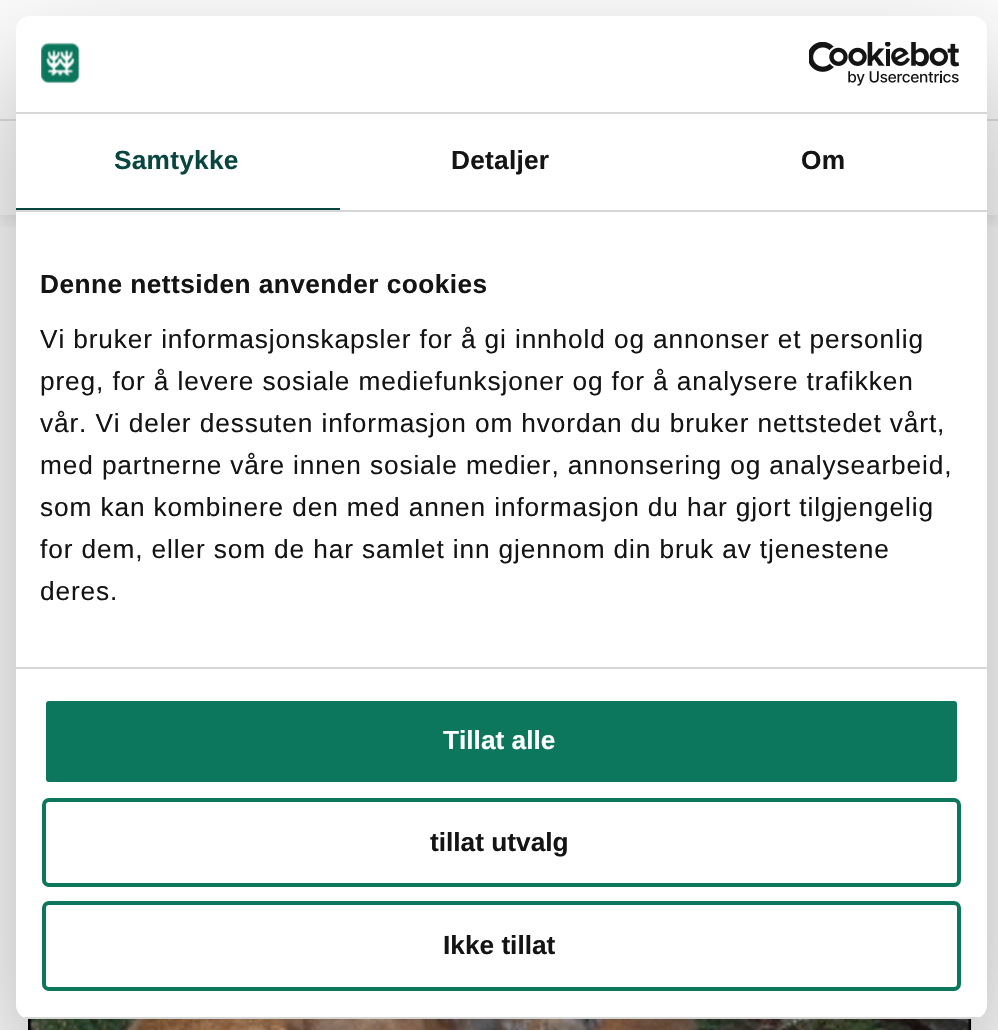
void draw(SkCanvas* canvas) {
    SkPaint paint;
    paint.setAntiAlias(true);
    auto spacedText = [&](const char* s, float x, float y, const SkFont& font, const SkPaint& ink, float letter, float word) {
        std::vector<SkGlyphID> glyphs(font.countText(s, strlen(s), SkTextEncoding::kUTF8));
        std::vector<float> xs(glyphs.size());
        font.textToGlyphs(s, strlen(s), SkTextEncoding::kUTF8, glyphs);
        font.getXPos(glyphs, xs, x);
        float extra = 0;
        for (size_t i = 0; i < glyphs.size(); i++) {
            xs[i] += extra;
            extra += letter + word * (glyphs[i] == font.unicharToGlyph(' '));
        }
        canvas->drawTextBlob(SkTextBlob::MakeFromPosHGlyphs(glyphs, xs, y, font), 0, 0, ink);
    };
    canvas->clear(0xFFFCFCFC);
    canvas->save();
    canvas->clipRect(SkRect::MakeXYWH(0, 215, 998, 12));
    paint.setColor(0x14000000);
    paint.setMaskFilter(SkMaskFilter::MakeBlur(kNormal_SkBlurStyle, 7));
    canvas->drawRect(SkRect::MakeXYWH(0, 7, 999, 215), paint);
    paint.setMaskFilter(nullptr);
    canvas->restore();
    paint.setColor(0xFFDFDFDF);
    canvas->drawRect(SkRect::MakeXYWH(0, 119, 998, 2), paint);
    canvas->drawImageRect(SkImages::DeferredFromEncodedData(SkData::MakeFromFileName("img1.png")), SkRect::MakeXYWH(28, 1018, 944, 12), SkSamplingOptions());
    paint.setColor(0x4D000000);
    paint.setMaskFilter(SkMaskFilter::MakeBlur(kNormal_SkBlurStyle, 59.5f));
    canvas->drawRoundRect(SkRect::MakeXYWH(16, 72, 971, 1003), 14, 14, paint);
    paint.setMaskFilter(nullptr);
    paint.setColor(0xFFFFFFFF);
    canvas->drawRoundRect(SkRect::MakeXYWH(16, 16, 971, 1003), 14, 14, paint);
    paint.setColor(0xFFD6D6D6);
    canvas->drawRect(SkRect::MakeXYWH(16, 112, 971, 2), paint);
    canvas->drawImageRect(SkImages::DeferredFromEncodedData(SkData::MakeFromFileName("img2.png")), SkRect::MakeXYWH(41, 42, 39, 42), SkSamplingOptions());
    canvas->drawImageRect(SkImages::DeferredFromEncodedData(SkData::MakeFromFileName("img3.png")), SkRect::MakeXYWH(809, 42, 151, 44), SkSamplingOptions());
    canvas->drawRect(SkRect::MakeXYWH(16, 210, 971, 2), paint);
    paint.setColor(0xFF094640);
    canvas->drawRect(SkRect::MakeXYWH(16, 208, 324, 2), paint);
    SkFont font1(fontMgr->matchFamilyStyle("Liberation Sans", SkFontStyle::Bold()), 26.25f);
    font1.setSubpixel(true);
    spacedText("Samtykke", 114, 169, font1, paint, 0.25f, 0);
    paint.setColor(0xFF141414);
    spacedText("Detaljer", 451, 169, font1, paint, 0.25f, 0);
    spacedText("Om", 801, 169, font1, paint, 0.25f, 0);
    paint.setColor(0xFFD6D6D6);
    canvas->drawRect(SkRect::MakeXYWH(16, 667, 971, 2), paint);
    paint.setColor(0xFF141414);
    spacedText("Denne nettsiden anvender cookies", 40, 293, font1, paint, 0.45f, 0);
    SkFont font2(fontMgr->matchFamilyStyle("Liberation Sans", SkFontStyle::Normal()), 26.25f);
    font2.setSubpixel(true);
    spacedText("Vi bruker informasjonskapsler for å gi innhold og annonser et personlig", 40, 348, font2, paint, 0.88f, 0);
    spacedText("preg, for å levere sosiale mediefunksjoner og for å analysere trafikken", 40, 390, font2, paint, 0.88f, 0);
    spacedText("vår. Vi deler dessuten informasjon om hvordan du bruker nettstedet vårt,", 40, 432, font2, paint, 0.88f, 0);
    spacedText("med partnerne våre innen sosiale medier, annonsering og analysearbeid,", 40, 474, font2, paint, 0.88f, 0);
    spacedText("som kan kombinere den med annen informasjon du har gjort tilgjengelig", 40, 516, font2, paint, 0.88f, 0);
    spacedText("for dem, eller som de har samlet inn gjennom din bruk av tjenestene", 40, 558, font2, paint, 0.88f, 0);
    spacedText("deres.", 40, 600, font2, paint, 0.88f, 0);
    canvas->save();
    canvas->clipPath(SkPathBuilder().moveTo(30, 16).lineTo(973, 16).cubicTo(980.5f, 16, 987, 22.5f, 987, 30).lineTo(987, 1005).cubicTo(987, 1012.5f, 980.5f, 1019, 973, 1019).lineTo(30, 1019).cubicTo(22.5f, 1019, 16, 1012.5f, 16, 1005).lineTo(16, 30).cubicTo(16, 22.5f, 22.5f, 16, 30, 16).close().detach(), true);
    paint.setColor(0xFFD6D6D6);
    canvas->drawRect(SkRect::MakeXYWH(16, 1017, 971, 2), paint);
    canvas->restore();
    paint.setColor(0xFF0C775D);
    canvas->drawRoundRect(SkRect::MakeXYWH(44, 699, 915, 85), 5, 5, paint);
    paint.setStyle(SkPaint::kStroke_Style);
    paint.setStrokeWidth(4);
    paint.setColor(0xFFFFFFFF);
    canvas->drawRoundRect(SkRect::MakeXYWH(44, 699, 915, 85), 5, 5, paint);
    paint.setStyle(SkPaint::kFill_Style);
    canvas->drawString("Tillat alle", 443, 749, font1, paint);
    paint.setStyle(SkPaint::kStroke_Style);
    paint.setColor(0xFF0C775D);
    canvas->drawRoundRect(SkRect::MakeXYWH(44, 800, 915, 85), 5, 5, paint);
    paint.setStyle(SkPaint::kFill_Style);
    paint.setColor(0xFF141414);
    canvas->drawString("tillat utvalg", 430, 851, font1, paint);
    paint.setStyle(SkPaint::kStroke_Style);
    paint.setColor(0xFF0C775D);
    canvas->drawRoundRect(SkRect::MakeXYWH(44, 903, 915, 86), 5, 5, paint);
    paint.setStyle(SkPaint::kFill_Style);
    paint.setColor(0xFF141414);
    canvas->drawString("Ikke tillat", 443, 954, font1, paint);
}
